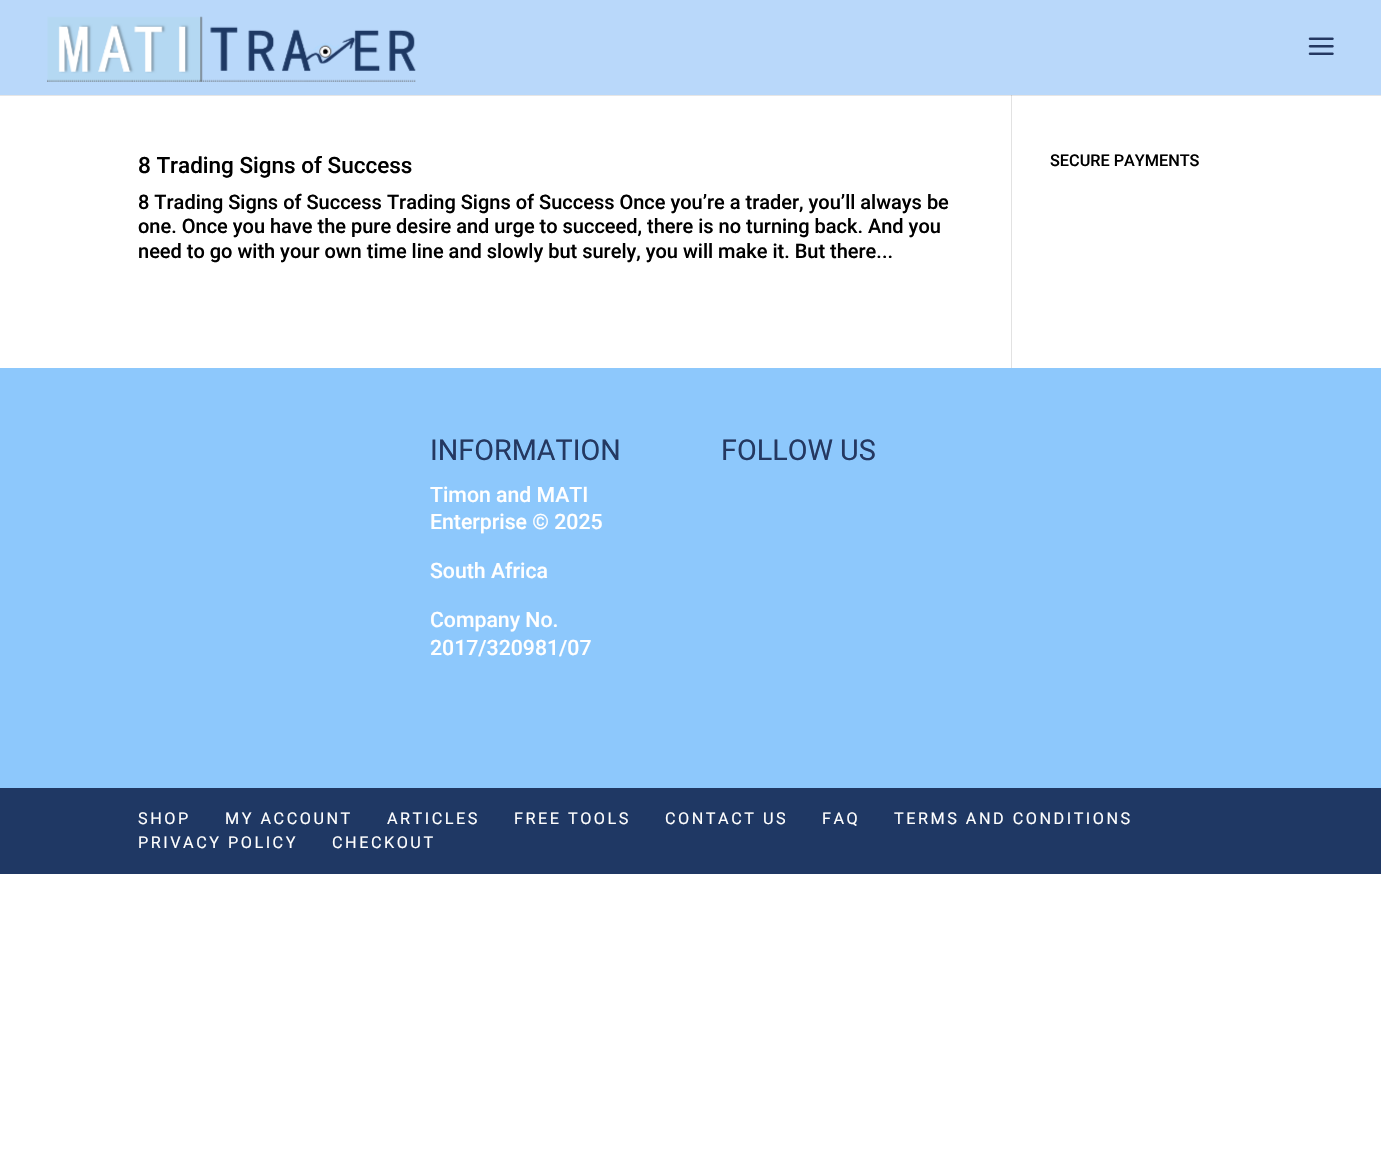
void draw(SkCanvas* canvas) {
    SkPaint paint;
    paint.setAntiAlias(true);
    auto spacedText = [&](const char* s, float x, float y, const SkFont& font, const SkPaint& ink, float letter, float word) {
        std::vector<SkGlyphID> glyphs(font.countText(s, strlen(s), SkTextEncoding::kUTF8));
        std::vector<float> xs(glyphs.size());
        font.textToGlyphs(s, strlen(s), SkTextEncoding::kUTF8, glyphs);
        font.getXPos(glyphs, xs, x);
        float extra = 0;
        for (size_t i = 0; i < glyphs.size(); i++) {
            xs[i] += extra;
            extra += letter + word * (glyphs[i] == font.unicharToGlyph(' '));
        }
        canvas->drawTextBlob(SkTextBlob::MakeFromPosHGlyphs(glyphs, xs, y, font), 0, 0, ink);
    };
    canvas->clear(0xFFFFFFFF);
    paint.setColor(0xFFE6E6E6);
    canvas->drawRect(SkRect::MakeXYWH(0, 95, 1381, 1), paint);
    paint.setColor(0xFFB9D8FA);
    canvas->drawRect(SkRect::MakeXYWH(0, 0, 1381, 95), paint);
    canvas->drawImageRect(SkImages::DeferredFromEncodedData(SkData::MakeFromFileName("img1.png")), SkRect::MakeXYWH(47, 16, 369, 66), SkSamplingOptions());
    canvas->drawImageRect(SkImages::DeferredFromEncodedData(SkData::MakeFromFileName("img2.png")), SkRect::MakeXYWH(1308, 37, 26, 18), SkSamplingOptions());
    paint.setColor(0xFFE2E2E2);
    canvas->drawRect(SkRect::MakeXYWH(1011, 96, 1, 272), paint);
    paint.setColor(0xFFCBCBCB);
    canvas->drawRect(SkRect::MakeXYWH(1011, 95, 1, 1), paint);
    SkFont font1(fontMgr->matchFamilyStyle("Roboto", SkFontStyle(500, SkFontStyle::kNormal_Width, SkFontStyle::kUpright_Slant)), 22.5f);
    font1.setSubpixel(true);
    paint.setColor(0xFF000000);
    canvas->drawString("8 Trading Signs of Success", 138, 173, font1, paint);
    SkFont font2(fontMgr->matchFamilyStyle("Roboto", SkFontStyle(500, SkFontStyle::kNormal_Width, SkFontStyle::kUpright_Slant)), 20);
    font2.setSubpixel(true);
    canvas->drawString("8 Trading Signs of Success Trading Signs of Success Once you’re a trader, you’ll always be", 138, 209, font2, paint);
    canvas->drawString("one. Once you have the pure desire and urge to succeed, there is no turning back. And you", 138, 233, font2, paint);
    canvas->drawString("need to go with your own time line and slowly but surely, you will make it. But there...", 138, 258, font2, paint);
    SkFont font3(fontMgr->matchFamilyStyle("Roboto", SkFontStyle(500, SkFontStyle::kNormal_Width, SkFontStyle::kUpright_Slant)), 16.25f);
    font3.setSubpixel(true);
    canvas->drawString("SECURE PAYMENTS", 1050, 166, font3, paint);
    paint.setColor(0xFF8DC8FC);
    canvas->drawRect(SkRect::MakeXYWH(0, 368, 1381, 420), paint);
    SkFont font4(fontMgr->matchFamilyStyle("Roboto", SkFontStyle::Normal()), 28.75f);
    font4.setSubpixel(true);
    paint.setColor(0xFF243861);
    canvas->drawString("INFORMATION", 430, 460, font4, paint);
    SkFont font5(fontMgr->matchFamilyStyle("Roboto", SkFontStyle(500, SkFontStyle::kNormal_Width, SkFontStyle::kUpright_Slant)), 21.25f);
    font5.setSubpixel(true);
    paint.setColor(0xFFFFFFFF);
    canvas->drawString("Timon and MATI", 430, 502, font5, paint);
    canvas->drawString("Enterprise © 2025", 430, 529, font5, paint);
    canvas->drawString("South Africa", 430, 578, font5, paint);
    canvas->drawString("Company No.", 430, 627, font5, paint);
    canvas->drawString("2017/320981/07", 430, 655, font5, paint);
    paint.setColor(0xFF243861);
    canvas->drawString("FOLLOW US", 721, 460, font4, paint);
    paint.setColor(0xFF1F3864);
    canvas->drawRect(SkRect::MakeXYWH(0, 788, 1381, 86), paint);
    SkFont font6(fontMgr->matchFamilyStyle("Roboto", SkFontStyle::Normal()), 16.25f);
    font6.setSubpixel(true);
    paint.setColor(0xFFFFFFFF);
    spacedText("SHOP", 138, 824, font6, paint, 2.5f, 0);
    spacedText("MY ACCOUNT", 225, 824, font6, paint, 2.5f, 0);
    spacedText("ARTICLES", 387, 824, font6, paint, 2.5f, 0);
    spacedText("FREE TOOLS", 514, 824, font6, paint, 2.5f, 0);
    spacedText("CONTACT US", 665, 824, font6, paint, 2.5f, 0);
    spacedText("FAQ", 822, 824, font6, paint, 2.5f, 0);
    spacedText("TERMS AND CONDITIONS", 894, 824, font6, paint, 2.5f, 0);
    spacedText("PRIVACY POLICY", 138, 848, font6, paint, 2.5f, 0);
    spacedText("CHECKOUT", 332, 848, font6, paint, 2.5f, 0);
}
